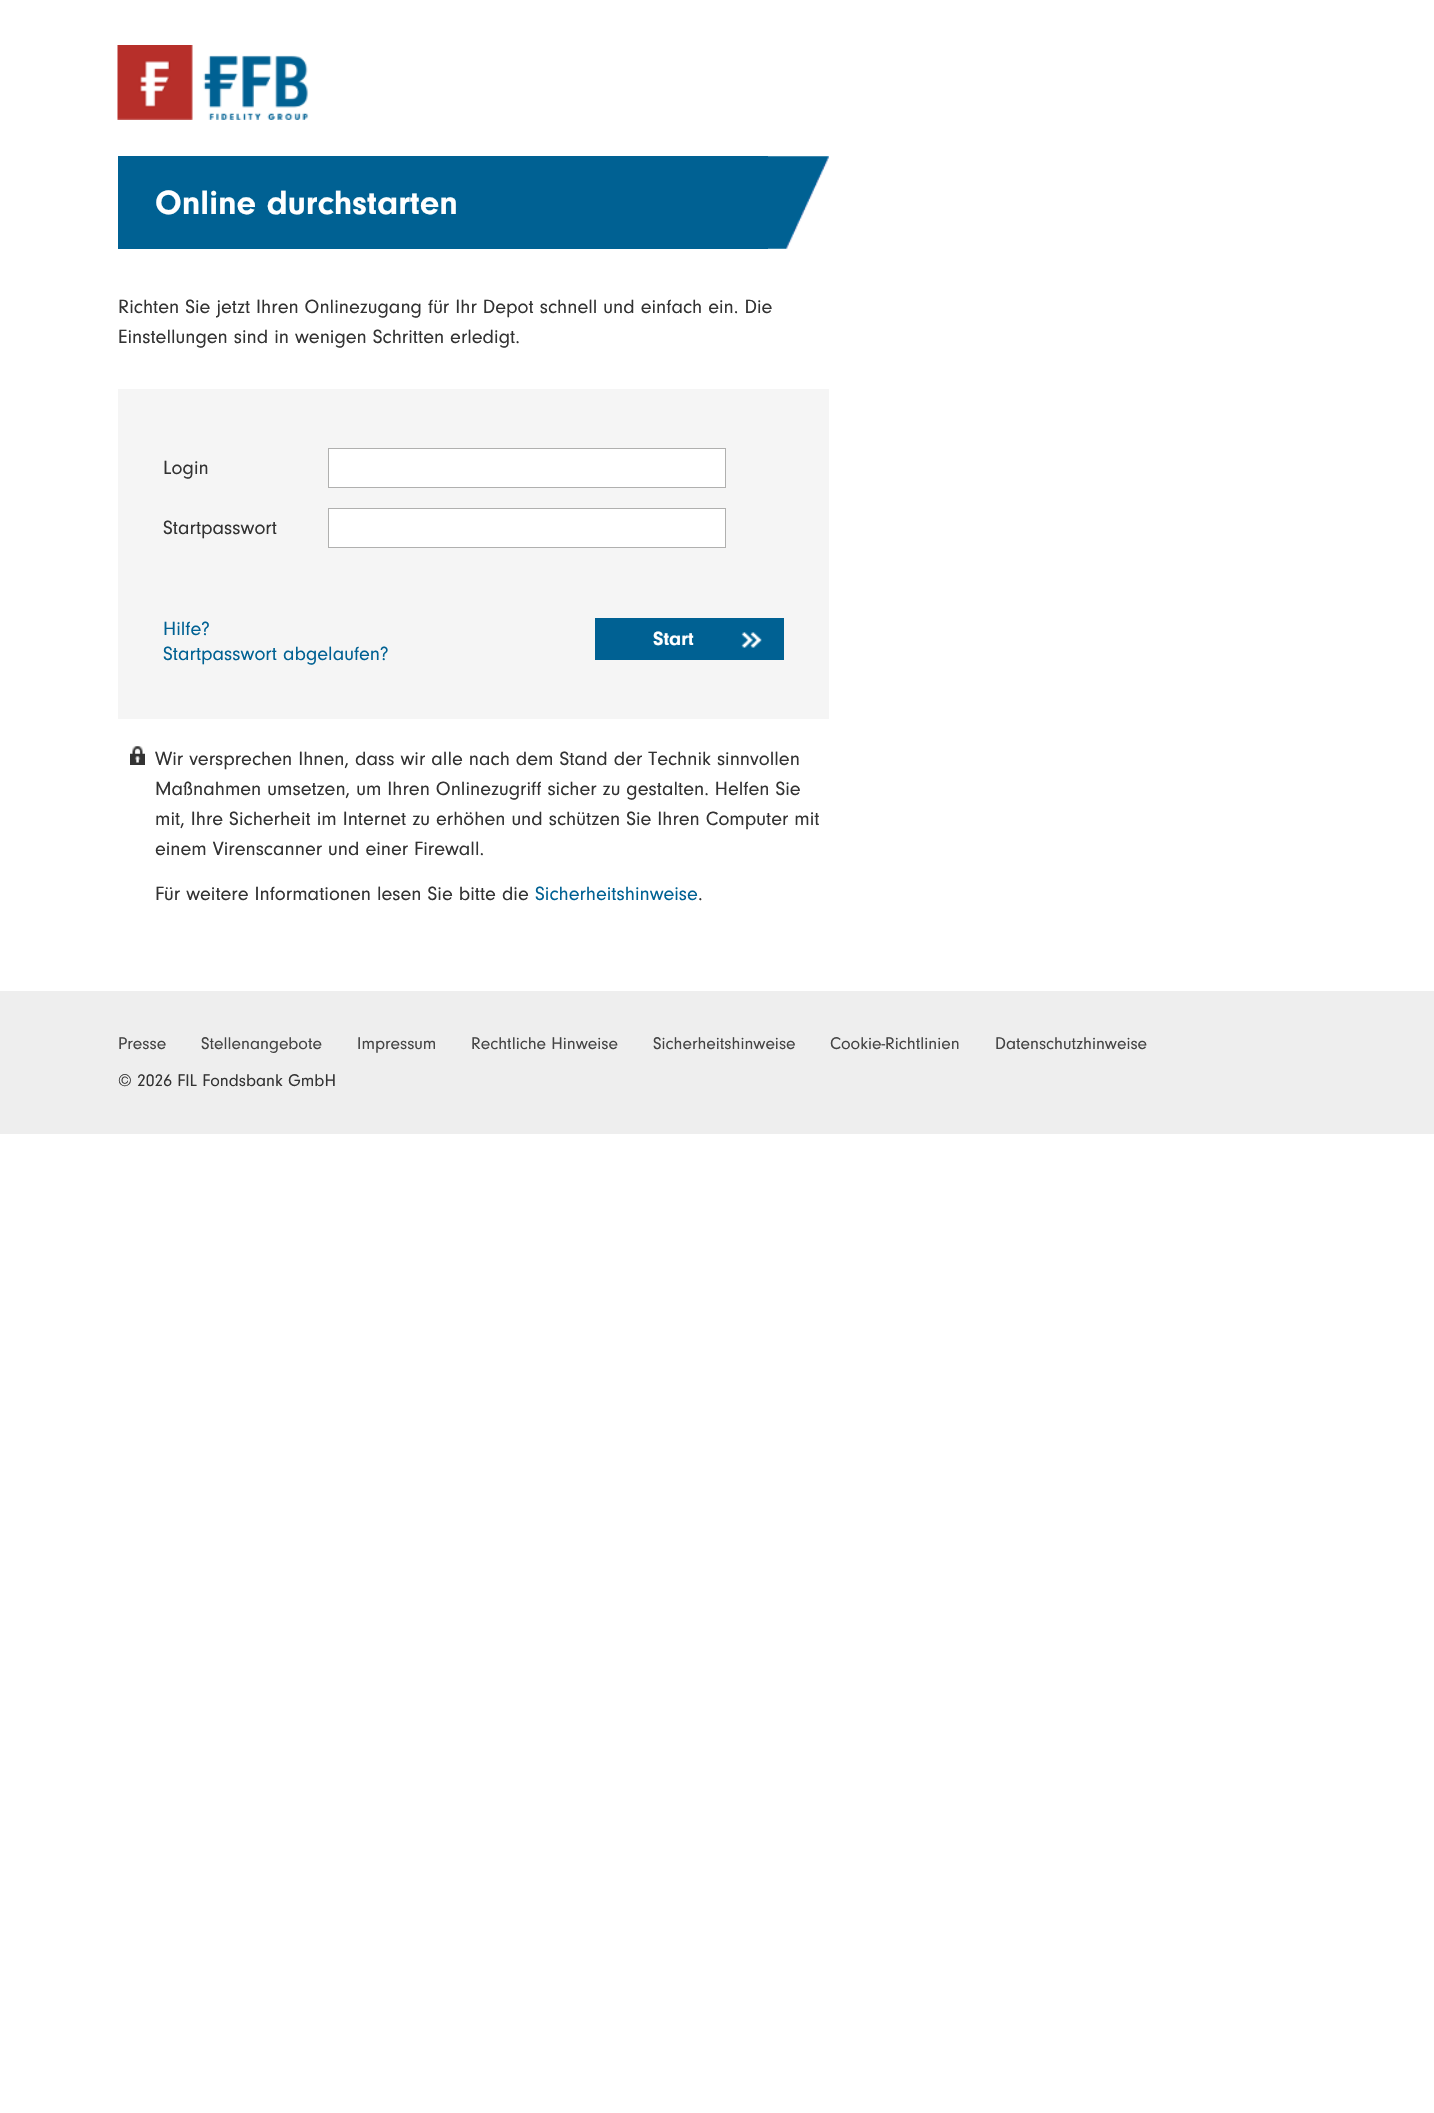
void draw(SkCanvas* canvas) {
    SkPaint paint;
    paint.setAntiAlias(true);
    canvas->clear(0xFFFFFFFF);
    canvas->drawImageRect(SkImages::DeferredFromEncodedData(SkData::MakeFromFileName("img1.png")), SkRect::MakeXYWH(117, 45, 192, 75), SkSamplingOptions());
    paint.setColor(0xFF006193);
    canvas->drawRect(SkRect::MakeXYWH(118, 156, 650, 93), paint);
    SkFont font1(fontMgr->matchFamilyStyle("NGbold", SkFontStyle::Normal()), 35);
    font1.setSubpixel(true);
    paint.setColor(0xFFFFFFFF);
    canvas->drawString("Online durchstarten", 155, 214, font1, paint);
    canvas->drawImageRect(SkImages::DeferredFromEncodedData(SkData::MakeFromFileName("img2.png")), SkRect::MakeXYWH(768, 156, 61, 93), SkSamplingOptions());
    SkFont font2(fontMgr->matchFamilyStyle("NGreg", SkFontStyle::Normal()), 20);
    font2.setSubpixel(true);
    paint.setColor(0xFF333333);
    canvas->drawString("Richten Sie jetzt Ihren Onlinezugang für Ihr Depot schnell und einfach ein. Die", 118, 313, font2, paint);
    canvas->drawString("Einstellungen sind in wenigen Schritten erledigt.", 118, 343, font2, paint);
    paint.setColor(0xFFF5F5F5);
    canvas->drawRect(SkRect::MakeXYWH(118, 389, 711, 330), paint);
    paint.setColor(0xFF333333);
    canvas->drawString("Login", 163, 474, font2, paint);
    paint.setColor(0xFFFFFFFF);
    canvas->drawRect(SkRect::MakeXYWH(328.5f, 448.5f, 397, 39), paint);
    paint.setStyle(SkPaint::kStroke_Style);
    paint.setStrokeWidth(1);
    paint.setColor(0xFFB0B0AF);
    canvas->drawRect(SkRect::MakeXYWH(328.5f, 448.5f, 397, 39), paint);
    paint.setStyle(SkPaint::kFill_Style);
    paint.setColor(0xFF333333);
    canvas->drawString("Startpasswort", 163, 534, font2, paint);
    paint.setColor(0xFFFFFFFF);
    canvas->drawRect(SkRect::MakeXYWH(328.5f, 508.5f, 397, 39), paint);
    paint.setStyle(SkPaint::kStroke_Style);
    paint.setColor(0xFFB0B0AF);
    canvas->drawRect(SkRect::MakeXYWH(328.5f, 508.5f, 397, 39), paint);
    paint.setStyle(SkPaint::kFill_Style);
    paint.setColor(0xFF006193);
    canvas->drawString("Hilfe?", 163, 635, font2, paint);
    canvas->drawString("Startpasswort abgelaufen?", 163, 660, font2, paint);
    canvas->drawRect(SkRect::MakeXYWH(595, 618, 189, 42), paint);
    SkFont font3(fontMgr->matchFamilyStyle("NGbold", SkFontStyle::Normal()), 20);
    font3.setSubpixel(true);
    paint.setColor(0xFFFFFFFF);
    canvas->drawString("Start", 653, 645, font3, paint);
    canvas->drawImageRect(SkImages::DeferredFromEncodedData(SkData::MakeFromFileName("img3.png")), SkRect::MakeXYWH(741, 632, 21, 16), SkSamplingOptions());
    canvas->drawImageRect(SkImages::DeferredFromEncodedData(SkData::MakeFromFileName("img4.png")), SkRect::MakeXYWH(130, 746, 15, 19), SkSamplingOptions());
    paint.setColor(0xFF333333);
    canvas->drawString("Wir versprechen Ihnen, dass wir alle nach dem Stand der Technik sinnvollen", 155, 765, font2, paint);
    canvas->drawString("Maßnahmen umsetzen, um Ihren Onlinezugriff sicher zu gestalten. Helfen Sie", 155, 795, font2, paint);
    canvas->drawString("mit, Ihre Sicherheit im Internet zu erhöhen und schützen Sie Ihren Computer mit", 155, 825, font2, paint);
    canvas->drawString("einem Virenscanner und einer Firewall.", 155, 855, font2, paint);
    canvas->drawString("Für weitere Informationen lesen Sie bitte die", 155, 900, font2, paint);
    paint.setColor(0xFF006193);
    canvas->drawString("Sicherheitshinweise", 535, 900, font2, paint);
    paint.setColor(0xFF333333);
    canvas->drawString(".", 698, 900, font2, paint);
    paint.setColor(0xFFEEEEEE);
    canvas->drawRect(SkRect::MakeXYWH(0, 991, 1434, 143), paint);
    SkFont font4(fontMgr->matchFamilyStyle("NGreg", SkFontStyle::Normal()), 17.5f);
    font4.setSubpixel(true);
    paint.setColor(0xFF444444);
    canvas->drawString("Presse", 118, 1049, font4, paint);
    canvas->drawString("Stellenangebote", 201, 1049, font4, paint);
    canvas->drawString("Impressum", 357, 1049, font4, paint);
    canvas->drawString("Rechtliche Hinweise", 471, 1049, font4, paint);
    canvas->drawString("Sicherheitshinweise", 653, 1049, font4, paint);
    canvas->drawString("Cookie-Richtlinien", 830, 1049, font4, paint);
    canvas->drawString("Datenschutzhinweise", 995, 1049, font4, paint);
    paint.setColor(0xFF333333);
    canvas->drawString("© 2026 FIL Fondsbank GmbH", 118, 1086, font4, paint);
}
